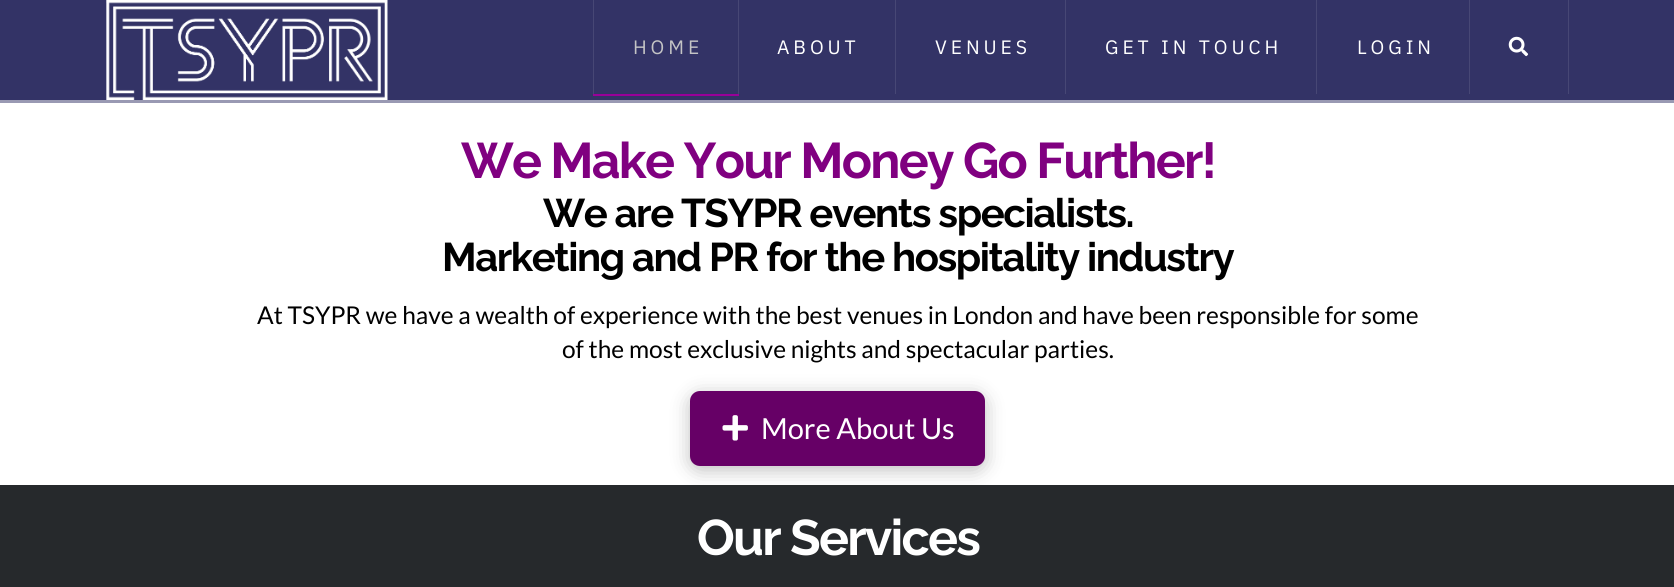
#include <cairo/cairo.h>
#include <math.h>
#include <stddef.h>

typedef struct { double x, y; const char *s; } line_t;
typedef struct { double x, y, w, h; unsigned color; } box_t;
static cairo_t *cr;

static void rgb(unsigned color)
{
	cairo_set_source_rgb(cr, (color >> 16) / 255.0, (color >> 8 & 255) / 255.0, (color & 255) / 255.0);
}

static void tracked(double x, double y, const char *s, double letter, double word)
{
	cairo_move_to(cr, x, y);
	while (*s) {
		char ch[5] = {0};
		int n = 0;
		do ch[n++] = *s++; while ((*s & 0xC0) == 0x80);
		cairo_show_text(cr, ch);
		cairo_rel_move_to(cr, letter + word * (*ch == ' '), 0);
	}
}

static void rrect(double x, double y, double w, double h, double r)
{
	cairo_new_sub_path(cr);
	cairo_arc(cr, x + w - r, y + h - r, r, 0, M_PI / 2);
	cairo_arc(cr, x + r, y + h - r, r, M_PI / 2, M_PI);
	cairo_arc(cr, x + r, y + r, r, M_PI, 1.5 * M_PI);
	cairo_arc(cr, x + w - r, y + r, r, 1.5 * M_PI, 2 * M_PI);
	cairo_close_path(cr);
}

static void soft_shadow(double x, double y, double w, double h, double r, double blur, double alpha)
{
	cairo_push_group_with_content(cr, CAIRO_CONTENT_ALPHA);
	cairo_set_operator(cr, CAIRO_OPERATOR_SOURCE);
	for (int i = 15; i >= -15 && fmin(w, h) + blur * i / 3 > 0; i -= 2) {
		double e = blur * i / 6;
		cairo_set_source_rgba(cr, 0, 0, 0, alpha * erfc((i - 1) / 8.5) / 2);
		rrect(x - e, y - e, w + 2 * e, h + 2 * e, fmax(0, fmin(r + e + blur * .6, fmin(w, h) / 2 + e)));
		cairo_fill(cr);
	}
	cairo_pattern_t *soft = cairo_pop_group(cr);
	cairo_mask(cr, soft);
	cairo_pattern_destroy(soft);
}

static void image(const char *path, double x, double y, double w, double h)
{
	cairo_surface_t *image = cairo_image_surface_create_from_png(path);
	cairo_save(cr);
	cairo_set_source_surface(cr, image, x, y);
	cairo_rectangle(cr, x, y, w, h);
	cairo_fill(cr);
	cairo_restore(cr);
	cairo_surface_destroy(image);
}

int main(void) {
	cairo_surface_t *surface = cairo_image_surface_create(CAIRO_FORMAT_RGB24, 1674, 587);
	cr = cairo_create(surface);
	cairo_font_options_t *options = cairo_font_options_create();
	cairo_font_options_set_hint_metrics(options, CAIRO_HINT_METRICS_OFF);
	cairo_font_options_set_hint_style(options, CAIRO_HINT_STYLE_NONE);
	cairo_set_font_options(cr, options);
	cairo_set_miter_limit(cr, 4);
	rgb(0xffffff);
	cairo_paint(cr);
	rgb(0x333366);
	cairo_rectangle(cr, 0, 0, 1674, 100);
	cairo_fill(cr);
	rgb(0x9999b3);
	cairo_rectangle(cr, 0, 100, 1674, 3);
	cairo_fill(cr);
	image("img/1.png", 106, 0, 282, 100);
	rgb(0x990099);
	cairo_new_path(cr);
	cairo_move_to(cr, 593, 94);
	cairo_line_to(cr, 593, 96);
	cairo_line_to(cr, 739, 96);
	cairo_line_to(cr, 739, 3);
	cairo_line_to(cr, 739, 94);
	cairo_close_path(cr);
	cairo_fill(cr);
	{
		static const box_t items[] = {
			{738, 0, 1, 94, 0x474775},
			{593, 0, 1, 94, 0x474775},
			{895, 0, 1, 94, 0x474775},
			{1065, 0, 1, 94, 0x474775},
			{1316, 0, 1, 94, 0x474775},
			{1469, 0, 1, 94, 0x474775},
			{1568, 0, 1, 94, 0x474775},
		};
		for (size_t i = 0; i < sizeof items / sizeof *items; i++) {
			rgb(items[i].color);
			cairo_rectangle(cr, items[i].x, items[i].y, items[i].w, items[i].h);
			cairo_fill(cr);
		}
	}
	image("img/2.png", 1508, 36, 21, 21);
	rgb(0x26292c);
	cairo_rectangle(cr, 0, 485, 1674, 102);
	cairo_fill(cr);
	rgb(0x000000);
	soft_shadow(690, 395, 295, 75, 10, 9.5, 0.25);
	rgb(0x660066);
	rrect(690, 391, 295, 75, 10);
	cairo_fill(cr);
	image("img/3.png", 722, 415, 26, 26);
	cairo_select_font_face(cr, "IBM Plex Sans", CAIRO_FONT_SLANT_NORMAL, CAIRO_FONT_WEIGHT_NORMAL);
	cairo_set_font_size(cr, 19.4);
	rgb(0xc4c4c5);
	tracked(633, 54, "HOME", 3.9, 0);
	rgb(0xffffff);
	{
		static const line_t items[] = {
			{777, 54, "ABOUT"},
			{935, 54, "VENUES"},
			{1105, 54, "GET IN TOUCH"},
			{1357, 54, "LOGIN"},
		};
		for (size_t i = 0; i < sizeof items / sizeof *items; i++) {
			tracked(items[i].x, items[i].y, items[i].s, 3.9, 0);
		}
	}
	cairo_select_font_face(cr, "Raleway", CAIRO_FONT_SLANT_NORMAL, CAIRO_FONT_WEIGHT_BOLD);
	cairo_set_font_size(cr, 50);
	rgb(0x800080);
	tracked(461, 178, "We Make Your Money Go Further!", -1.75, 0);
	cairo_set_font_size(cr, 40);
	rgb(0x000000);
	tracked(543, 227, "We are TSYPR events specialists.", -1.4, 0);
	tracked(442, 271, "Marketing and PR for the hospitality industry", -1.4, 0);
	cairo_select_font_face(cr, "Lato", CAIRO_FONT_SLANT_NORMAL, CAIRO_FONT_WEIGHT_NORMAL);
	cairo_set_font_size(cr, 24.5);
	cairo_move_to(cr, 257, 324);
	cairo_show_text(cr, "At TSYPR we have a wealth of experience with the best venues in London and have been responsible for some");
	cairo_move_to(cr, 562, 358);
	cairo_show_text(cr, "of the most exclusive nights and spectacular parties.");
	cairo_set_font_size(cr, 29);
	rgb(0xffffff);
	cairo_move_to(cr, 761, 439);
	cairo_show_text(cr, "More About Us");
	cairo_select_font_face(cr, "Raleway", CAIRO_FONT_SLANT_NORMAL, CAIRO_FONT_WEIGHT_BOLD);
	cairo_set_font_size(cr, 50);
	tracked(697, 555, "Our Services", -1.75, 0);
	cairo_surface_write_to_png(surface, "page.png");
	cairo_font_options_destroy(options);
	cairo_destroy(cr);
	cairo_surface_destroy(surface);
	return 0;
}
